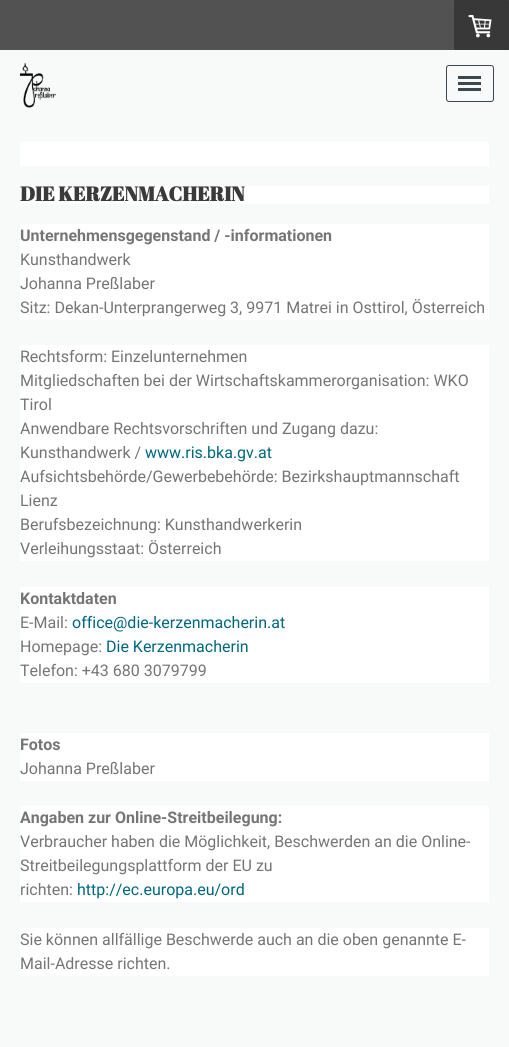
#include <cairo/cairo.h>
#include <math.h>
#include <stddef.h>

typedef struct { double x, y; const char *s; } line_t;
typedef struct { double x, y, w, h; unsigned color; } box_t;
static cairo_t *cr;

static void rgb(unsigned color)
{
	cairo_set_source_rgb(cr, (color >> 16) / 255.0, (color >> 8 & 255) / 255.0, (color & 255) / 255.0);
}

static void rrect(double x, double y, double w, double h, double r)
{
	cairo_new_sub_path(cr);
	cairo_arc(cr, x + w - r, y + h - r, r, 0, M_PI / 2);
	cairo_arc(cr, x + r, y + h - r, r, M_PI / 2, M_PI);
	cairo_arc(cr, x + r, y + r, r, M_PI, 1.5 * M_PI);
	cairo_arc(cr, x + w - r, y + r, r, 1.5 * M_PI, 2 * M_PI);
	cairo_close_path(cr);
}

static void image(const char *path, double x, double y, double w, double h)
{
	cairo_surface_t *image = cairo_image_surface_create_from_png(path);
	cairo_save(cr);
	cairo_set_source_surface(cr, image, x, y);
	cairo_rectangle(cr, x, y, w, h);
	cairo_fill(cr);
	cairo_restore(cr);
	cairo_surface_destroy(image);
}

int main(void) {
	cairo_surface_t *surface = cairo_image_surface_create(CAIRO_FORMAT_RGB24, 509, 1047);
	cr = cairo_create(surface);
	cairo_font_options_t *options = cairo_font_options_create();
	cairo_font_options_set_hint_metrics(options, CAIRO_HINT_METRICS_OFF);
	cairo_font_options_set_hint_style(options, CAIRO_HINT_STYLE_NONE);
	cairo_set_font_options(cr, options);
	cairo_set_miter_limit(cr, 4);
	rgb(0x525252);
	cairo_paint(cr);
	rgb(0x383838);
	rrect(454, 0, 55, 50, 1);
	cairo_fill(cr);
	image("img/1.png", 468, 15, 24, 23);
	rgb(0xf8f9f9);
	cairo_rectangle(cr, 0, 50, 509, 997);
	cairo_fill(cr);
	image("img/2.png", 20, 63, 36, 45);
	rrect(446.5, 65.5, 47, 36, 2.5);
	rgb(0x3e474c);
	cairo_set_line_width(cr, 1);
	cairo_stroke(cr);
	{
		static const box_t items[] = {
			{458, 82, 23, 3, 0x3e474c},
			{458, 76, 23, 3, 0x3e474c},
			{458, 88, 23, 3, 0x3e474c},
			{20, 142, 469, 24, 0xffffff},
			{20, 186, 469, 18, 0xffffff},
			{20, 224, 469, 96, 0xffffff},
			{20, 345, 469, 216, 0xffffff},
			{20, 587, 469, 96, 0xffffff},
			{20, 733, 469, 48, 0xffffff},
			{20, 806, 469, 96, 0xffffff},
			{20, 928, 469, 48, 0xffffff},
		};
		for (size_t i = 0; i < sizeof items / sizeof *items; i++) {
			rgb(items[i].color);
			cairo_rectangle(cr, items[i].x, items[i].y, items[i].w, items[i].h);
			cairo_fill(cr);
		}
	}
	cairo_select_font_face(cr, "Abril Fatface", CAIRO_FONT_SLANT_NORMAL, CAIRO_FONT_WEIGHT_BOLD);
	cairo_set_font_size(cr, 20);
	rgb(0x3a3a3a);
	cairo_move_to(cr, 20, 201);
	cairo_show_text(cr, "DIE KERZENMACHERIN");
	cairo_select_font_face(cr, "Roboto", CAIRO_FONT_SLANT_NORMAL, CAIRO_FONT_WEIGHT_BOLD);
	cairo_set_font_size(cr, 16);
	rgb(0x757575);
	cairo_move_to(cr, 20, 241);
	cairo_show_text(cr, "Unternehmensgegenstand / -informationen");
	cairo_select_font_face(cr, "Roboto", CAIRO_FONT_SLANT_NORMAL, CAIRO_FONT_WEIGHT_NORMAL);
	{
		static const line_t items[] = {
			{20, 265, "Kunsthandwerk"},
			{20, 289, "Johanna Preßlaber"},
			{20, 313, "Sitz: Dekan-Unterprangerweg 3, 9971 Matrei in Osttirol, Österreich"},
			{20, 362, "Rechtsform: Einzelunternehmen"},
			{20, 386, "Mitgliedschaften bei der Wirtschaftskammerorganisation: WKO"},
			{20, 410, "Tirol"},
			{20, 434, "Anwendbare Rechtsvorschriften und Zugang dazu:"},
			{20, 458, "Kunsthandwerk /"},
		};
		for (size_t i = 0; i < sizeof items / sizeof *items; i++) {
			cairo_move_to(cr, items[i].x, items[i].y);
			cairo_show_text(cr, items[i].s);
		}
	}
	rgb(0x00677f);
	cairo_move_to(cr, 145, 458);
	cairo_show_text(cr, "www.ris.bka.gv.at");
	rgb(0x757575);
	{
		static const line_t items[] = {
			{20, 482, "Aufsichtsbehörde/Gewerbebehörde: Bezirkshauptmannschaft"},
			{20, 506, "Lienz"},
			{20, 530, "Berufsbezeichnung: Kunsthandwerkerin"},
			{20, 554, "Verleihungsstaat: Österreich"},
		};
		for (size_t i = 0; i < sizeof items / sizeof *items; i++) {
			cairo_move_to(cr, items[i].x, items[i].y);
			cairo_show_text(cr, items[i].s);
		}
	}
	cairo_select_font_face(cr, "Roboto", CAIRO_FONT_SLANT_NORMAL, CAIRO_FONT_WEIGHT_BOLD);
	cairo_move_to(cr, 20, 604);
	cairo_show_text(cr, "Kontaktdaten");
	cairo_select_font_face(cr, "Roboto", CAIRO_FONT_SLANT_NORMAL, CAIRO_FONT_WEIGHT_NORMAL);
	cairo_move_to(cr, 20, 628);
	cairo_show_text(cr, "E-Mail:");
	rgb(0x00677f);
	cairo_move_to(cr, 72, 628);
	cairo_show_text(cr, "office@die-kerzenmacherin.at");
	rgb(0x757575);
	cairo_move_to(cr, 20, 652);
	cairo_show_text(cr, "Homepage:");
	rgb(0x00677f);
	cairo_move_to(cr, 106, 652);
	cairo_show_text(cr, "Die Kerzenmacherin");
	rgb(0x757575);
	cairo_move_to(cr, 20, 676);
	cairo_show_text(cr, "Telefon: +43 680 3079799");
	cairo_select_font_face(cr, "Roboto", CAIRO_FONT_SLANT_NORMAL, CAIRO_FONT_WEIGHT_BOLD);
	cairo_move_to(cr, 20, 750);
	cairo_show_text(cr, "Fotos");
	cairo_select_font_face(cr, "Roboto", CAIRO_FONT_SLANT_NORMAL, CAIRO_FONT_WEIGHT_NORMAL);
	cairo_move_to(cr, 20, 774);
	cairo_show_text(cr, "Johanna Preßlaber");
	cairo_select_font_face(cr, "Roboto", CAIRO_FONT_SLANT_NORMAL, CAIRO_FONT_WEIGHT_BOLD);
	cairo_move_to(cr, 20, 823);
	cairo_show_text(cr, "Angaben zur Online-Streitbeilegung:");
	cairo_select_font_face(cr, "Roboto", CAIRO_FONT_SLANT_NORMAL, CAIRO_FONT_WEIGHT_NORMAL);
	{
		static const line_t items[] = {
			{20, 847, "Verbraucher haben die Möglichkeit, Beschwerden an die Online-"},
			{20, 871, "Streitbeilegungsplattform der EU zu"},
			{20, 895, "richten:"},
		};
		for (size_t i = 0; i < sizeof items / sizeof *items; i++) {
			cairo_move_to(cr, items[i].x, items[i].y);
			cairo_show_text(cr, items[i].s);
		}
	}
	rgb(0x00677f);
	cairo_move_to(cr, 77, 895);
	cairo_show_text(cr, "http://ec.europa.eu/ord");
	rgb(0x757575);
	cairo_move_to(cr, 20, 945);
	cairo_show_text(cr, "Sie können allfällige Beschwerde auch an die oben genannte E-");
	cairo_move_to(cr, 20, 969);
	cairo_show_text(cr, "Mail-Adresse richten.");
	cairo_surface_write_to_png(surface, "page.png");
	cairo_font_options_destroy(options);
	cairo_destroy(cr);
	cairo_surface_destroy(surface);
	return 0;
}
